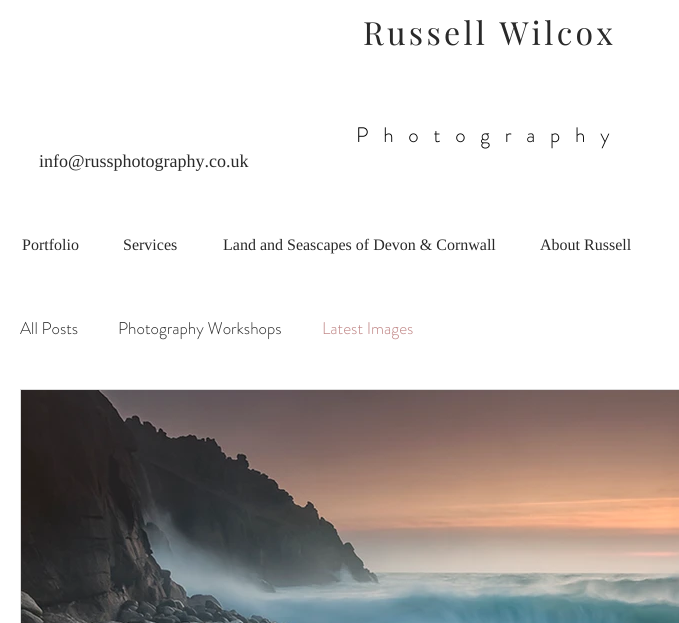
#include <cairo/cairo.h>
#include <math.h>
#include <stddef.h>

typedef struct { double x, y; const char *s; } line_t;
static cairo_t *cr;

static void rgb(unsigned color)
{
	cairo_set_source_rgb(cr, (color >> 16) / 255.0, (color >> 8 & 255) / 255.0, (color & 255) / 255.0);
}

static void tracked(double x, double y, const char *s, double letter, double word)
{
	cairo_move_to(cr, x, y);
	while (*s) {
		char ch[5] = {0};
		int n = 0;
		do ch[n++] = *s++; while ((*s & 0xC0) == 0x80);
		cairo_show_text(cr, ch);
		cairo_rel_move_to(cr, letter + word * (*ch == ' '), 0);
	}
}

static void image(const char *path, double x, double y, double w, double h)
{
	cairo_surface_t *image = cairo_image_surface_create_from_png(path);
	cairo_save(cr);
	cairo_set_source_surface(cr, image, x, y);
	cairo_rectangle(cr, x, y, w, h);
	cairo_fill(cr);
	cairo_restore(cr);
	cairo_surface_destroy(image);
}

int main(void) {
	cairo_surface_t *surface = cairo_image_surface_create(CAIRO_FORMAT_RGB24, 679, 623);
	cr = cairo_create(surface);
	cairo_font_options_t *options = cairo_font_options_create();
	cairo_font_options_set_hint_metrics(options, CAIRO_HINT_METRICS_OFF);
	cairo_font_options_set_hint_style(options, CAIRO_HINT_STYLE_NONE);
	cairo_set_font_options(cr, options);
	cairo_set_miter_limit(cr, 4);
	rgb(0xffffff);
	cairo_paint(cr);
	cairo_rectangle(cr, 20.5, 389.5, 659, 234);
	rgb(0xdbdbdb);
	cairo_set_line_width(cr, 1);
	cairo_stroke(cr);
	image("img/1.png", 21, 390, 658, 233);
	cairo_select_font_face(cr, "Playfair Display", CAIRO_FONT_SLANT_NORMAL, CAIRO_FONT_WEIGHT_NORMAL);
	cairo_set_font_size(cr, 32);
	rgb(0x292929);
	tracked(363, 45, "Russell Wilcox", 3.25, 0);
	cairo_select_font_face(cr, "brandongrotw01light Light", CAIRO_FONT_SLANT_NORMAL, CAIRO_FONT_WEIGHT_NORMAL);
	cairo_set_font_size(cr, 21);
	rgb(0x000000);
	tracked(356, 142, "Photography", 14.75, 0);
	cairo_select_font_face(cr, "Liberation Serif", CAIRO_FONT_SLANT_NORMAL, CAIRO_FONT_WEIGHT_NORMAL);
	cairo_set_font_size(cr, 18);
	rgb(0x292929);
	cairo_move_to(cr, 39, 167);
	cairo_show_text(cr, "info@russphotography.co.uk");
	cairo_set_font_size(cr, 16);
	{
		static const line_t items[] = {
			{22, 250, "Portfolio"},
			{123, 250, "Services"},
			{223, 250, "Land and Seascapes of Devon & Cornwall"},
			{540, 250, "About Russell"},
		};
		for (size_t i = 0; i < sizeof items / sizeof *items; i++) {
			cairo_move_to(cr, items[i].x, items[i].y);
			cairo_show_text(cr, items[i].s);
		}
	}
	cairo_select_font_face(cr, "brandongrotw01light Light", CAIRO_FONT_SLANT_NORMAL, CAIRO_FONT_WEIGHT_NORMAL);
	cairo_set_font_size(cr, 17);
	cairo_move_to(cr, 20, 334);
	cairo_show_text(cr, "All Posts");
	cairo_move_to(cr, 118, 334);
	cairo_show_text(cr, "Photography Workshops");
	rgb(0xbf8484);
	cairo_move_to(cr, 322, 334);
	cairo_show_text(cr, "Latest Images");
	cairo_surface_write_to_png(surface, "page.png");
	cairo_font_options_destroy(options);
	cairo_destroy(cr);
	cairo_surface_destroy(surface);
	return 0;
}
